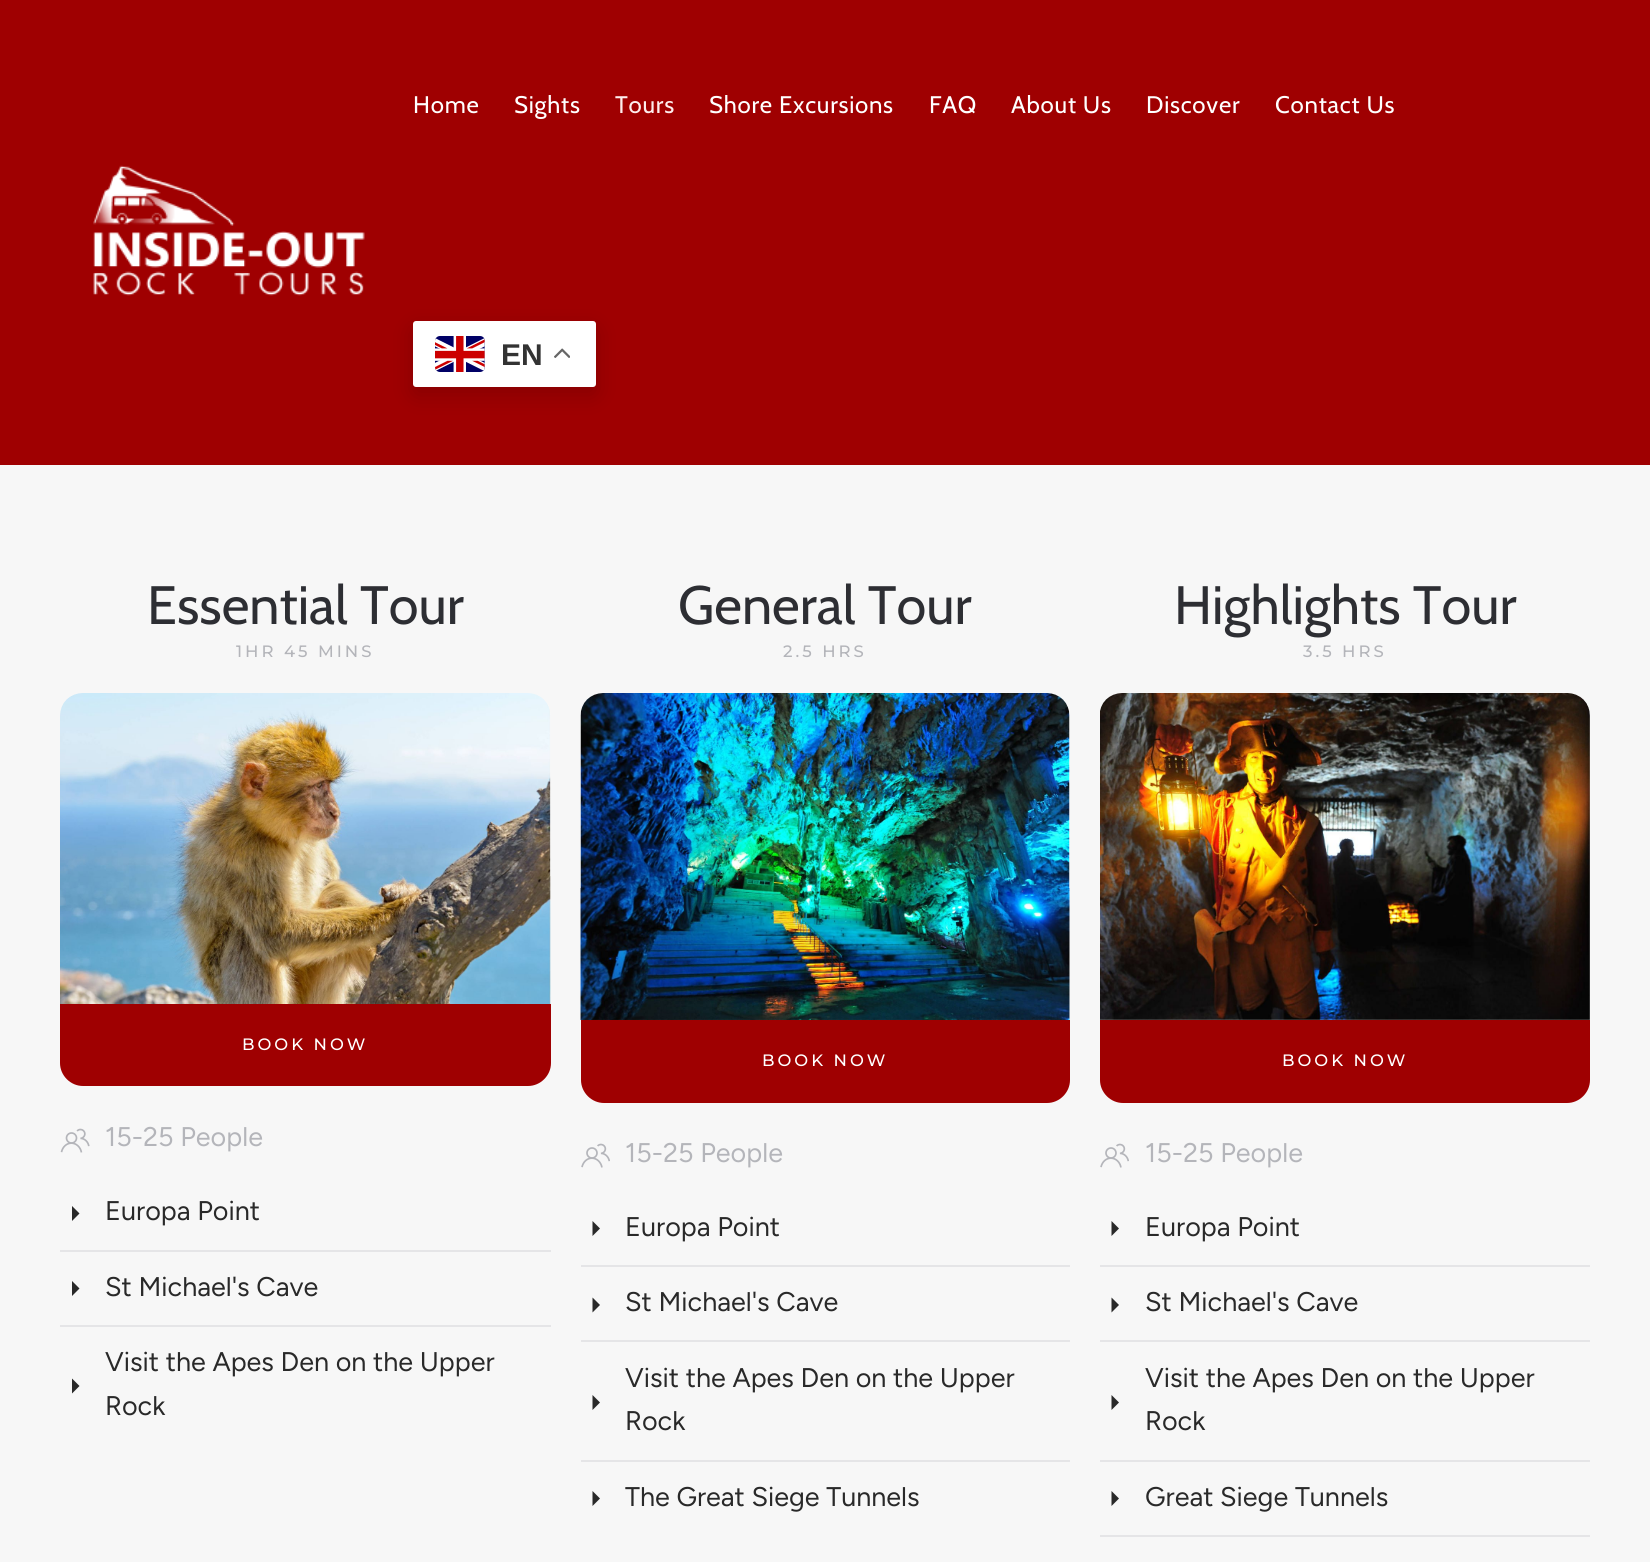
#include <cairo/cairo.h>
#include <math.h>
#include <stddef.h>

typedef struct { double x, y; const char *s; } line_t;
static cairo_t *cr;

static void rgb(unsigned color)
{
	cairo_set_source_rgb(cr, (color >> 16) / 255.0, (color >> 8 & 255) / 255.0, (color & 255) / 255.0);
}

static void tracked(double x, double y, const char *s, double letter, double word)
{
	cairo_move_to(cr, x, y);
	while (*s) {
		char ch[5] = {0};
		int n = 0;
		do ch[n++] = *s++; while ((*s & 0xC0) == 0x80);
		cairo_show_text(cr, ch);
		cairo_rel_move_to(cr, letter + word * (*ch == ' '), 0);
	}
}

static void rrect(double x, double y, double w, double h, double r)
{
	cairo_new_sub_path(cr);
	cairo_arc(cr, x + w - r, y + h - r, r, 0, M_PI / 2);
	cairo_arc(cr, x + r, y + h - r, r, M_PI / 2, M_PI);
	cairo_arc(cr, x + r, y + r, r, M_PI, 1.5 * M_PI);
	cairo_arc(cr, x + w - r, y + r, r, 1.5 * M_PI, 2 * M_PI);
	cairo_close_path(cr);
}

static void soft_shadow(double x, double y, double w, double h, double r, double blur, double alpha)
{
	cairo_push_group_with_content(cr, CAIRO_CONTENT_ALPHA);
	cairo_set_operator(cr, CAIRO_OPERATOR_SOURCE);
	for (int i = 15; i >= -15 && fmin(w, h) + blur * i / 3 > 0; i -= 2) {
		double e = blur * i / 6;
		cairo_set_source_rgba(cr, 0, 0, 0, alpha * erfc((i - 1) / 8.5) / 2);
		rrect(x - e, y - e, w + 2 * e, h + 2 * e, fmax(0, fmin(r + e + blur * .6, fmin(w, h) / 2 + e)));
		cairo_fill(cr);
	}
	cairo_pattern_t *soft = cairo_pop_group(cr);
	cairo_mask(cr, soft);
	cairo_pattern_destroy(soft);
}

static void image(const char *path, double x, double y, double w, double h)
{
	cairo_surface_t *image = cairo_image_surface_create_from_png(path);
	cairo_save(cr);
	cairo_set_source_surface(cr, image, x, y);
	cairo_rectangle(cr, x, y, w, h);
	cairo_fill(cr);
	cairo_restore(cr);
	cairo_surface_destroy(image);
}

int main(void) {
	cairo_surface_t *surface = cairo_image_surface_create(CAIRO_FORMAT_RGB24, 1650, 1562);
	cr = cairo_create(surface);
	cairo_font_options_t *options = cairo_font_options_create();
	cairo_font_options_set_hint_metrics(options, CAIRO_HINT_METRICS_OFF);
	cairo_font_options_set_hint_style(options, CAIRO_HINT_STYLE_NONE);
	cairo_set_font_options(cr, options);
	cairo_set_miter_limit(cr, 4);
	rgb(0xf7f7f7);
	cairo_paint(cr);
	rgb(0x9f0001);
	cairo_rectangle(cr, 0, 0, 1650, 465);
	cairo_fill(cr);
	image("img/1.png", 93, 165, 272, 131);
	rgb(0x000000);
	soft_shadow(413, 329, 183, 66, 3, 11, 0.15);
	rgb(0xffffff);
	rrect(413, 321, 183, 66, 3);
	cairo_fill(cr);
	image("img/2.png", 435, 336, 50, 36);
	image("img/3.png", 554, 348, 16, 10);
	image("img/4.png", 60, 693, 491, 311);
	rgb(0x9f0001);
	cairo_new_path(cr);
	cairo_move_to(cr, 60, 1004);
	cairo_line_to(cr, 551, 1004);
	cairo_line_to(cr, 551, 1063);
	cairo_curve_to(cr, 551, 1075.5, 540.5, 1086, 528, 1086);
	cairo_line_to(cr, 83, 1086);
	cairo_curve_to(cr, 70.5, 1086, 60, 1075.5, 60, 1063);
	cairo_close_path(cr);
	cairo_fill(cr);
	image("img/5.png", 60, 1128, 30, 25);
	rgb(0x292929);
	cairo_new_path(cr);
	cairo_move_to(cr, 72, 1206);
	cairo_line_to(cr, 79.5, 1213.5);
	cairo_line_to(cr, 72, 1221);
	cairo_close_path(cr);
	cairo_fill(cr);
	rgb(0xe5e5e7);
	cairo_rectangle(cr, 60, 1250, 491, 2);
	cairo_fill(cr);
	rgb(0x292929);
	cairo_new_path(cr);
	cairo_move_to(cr, 72, 1281);
	cairo_line_to(cr, 79.5, 1288.5);
	cairo_line_to(cr, 72, 1296);
	cairo_close_path(cr);
	cairo_fill(cr);
	rgb(0xe5e5e7);
	cairo_rectangle(cr, 60, 1325, 491, 2);
	cairo_fill(cr);
	rgb(0x292929);
	cairo_new_path(cr);
	cairo_move_to(cr, 72, 1378.5);
	cairo_line_to(cr, 79.5, 1386);
	cairo_line_to(cr, 72, 1393.5);
	cairo_close_path(cr);
	cairo_fill(cr);
	image("img/6.png", 580, 693, 490, 327);
	rgb(0x9f0001);
	cairo_new_path(cr);
	cairo_move_to(cr, 581, 1020);
	cairo_line_to(cr, 1070, 1020);
	cairo_line_to(cr, 1070, 1080);
	cairo_curve_to(cr, 1070, 1092.5, 1059.5, 1103, 1047, 1103);
	cairo_line_to(cr, 604, 1103);
	cairo_curve_to(cr, 591.5, 1103, 581, 1092.5, 581, 1080);
	cairo_close_path(cr);
	cairo_fill(cr);
	image("img/7.png", 581, 1143, 29, 25);
	rgb(0x292929);
	cairo_new_path(cr);
	cairo_move_to(cr, 592.5, 1221);
	cairo_line_to(cr, 600, 1228.5);
	cairo_line_to(cr, 592.5, 1236);
	cairo_close_path(cr);
	cairo_fill(cr);
	rgb(0xe5e5e7);
	cairo_rectangle(cr, 581, 1265, 489, 2);
	cairo_fill(cr);
	rgb(0x292929);
	cairo_new_path(cr);
	cairo_move_to(cr, 592.5, 1297.5);
	cairo_line_to(cr, 600, 1305);
	cairo_line_to(cr, 592.5, 1312.5);
	cairo_close_path(cr);
	cairo_fill(cr);
	rgb(0xe5e5e7);
	cairo_rectangle(cr, 581, 1340, 489, 2);
	cairo_fill(cr);
	rgb(0x292929);
	cairo_new_path(cr);
	cairo_move_to(cr, 592.5, 1395);
	cairo_line_to(cr, 600, 1402.5);
	cairo_line_to(cr, 592.5, 1410);
	cairo_close_path(cr);
	cairo_fill(cr);
	rgb(0xe5e5e7);
	cairo_rectangle(cr, 581, 1460, 489, 2);
	cairo_fill(cr);
	rgb(0x292929);
	cairo_new_path(cr);
	cairo_move_to(cr, 592.5, 1491);
	cairo_line_to(cr, 600, 1498.5);
	cairo_line_to(cr, 592.5, 1506);
	cairo_close_path(cr);
	cairo_fill(cr);
	image("img/8.png", 1100, 693, 490, 327);
	rgb(0x9f0001);
	cairo_new_path(cr);
	cairo_move_to(cr, 1100, 1020);
	cairo_line_to(cr, 1590, 1020);
	cairo_line_to(cr, 1590, 1080);
	cairo_curve_to(cr, 1590, 1092.5, 1579.5, 1103, 1567, 1103);
	cairo_line_to(cr, 1123, 1103);
	cairo_curve_to(cr, 1110.5, 1103, 1100, 1092.5, 1100, 1080);
	cairo_close_path(cr);
	cairo_fill(cr);
	image("img/7.png", 1100, 1143, 29, 25);
	rgb(0x292929);
	cairo_new_path(cr);
	cairo_move_to(cr, 1111.5, 1221);
	cairo_line_to(cr, 1119, 1228.5);
	cairo_line_to(cr, 1111.5, 1236);
	cairo_close_path(cr);
	cairo_fill(cr);
	rgb(0xe5e5e7);
	cairo_rectangle(cr, 1100, 1265, 490, 2);
	cairo_fill(cr);
	rgb(0x292929);
	cairo_new_path(cr);
	cairo_move_to(cr, 1111.5, 1297.5);
	cairo_line_to(cr, 1119, 1305);
	cairo_line_to(cr, 1111.5, 1312.5);
	cairo_close_path(cr);
	cairo_fill(cr);
	rgb(0xe5e5e7);
	cairo_rectangle(cr, 1100, 1340, 490, 2);
	cairo_fill(cr);
	rgb(0x292929);
	cairo_new_path(cr);
	cairo_move_to(cr, 1111.5, 1395);
	cairo_line_to(cr, 1119, 1402.5);
	cairo_line_to(cr, 1111.5, 1410);
	cairo_close_path(cr);
	cairo_fill(cr);
	rgb(0xe5e5e7);
	cairo_rectangle(cr, 1100, 1460, 490, 2);
	cairo_fill(cr);
	rgb(0x292929);
	cairo_new_path(cr);
	cairo_move_to(cr, 1111.5, 1491);
	cairo_line_to(cr, 1119, 1498.5);
	cairo_line_to(cr, 1111.5, 1506);
	cairo_close_path(cr);
	cairo_fill(cr);
	rgb(0xe5e5e7);
	cairo_rectangle(cr, 1100, 1535, 490, 2);
	cairo_fill(cr);
	cairo_select_font_face(cr, "Cabin", CAIRO_FONT_SLANT_NORMAL, CAIRO_FONT_WEIGHT_NORMAL);
	cairo_set_font_size(cr, 24);
	rgb(0xffffff);
	tracked(413, 113, "Home", 0.75, 0);
	tracked(514, 113, "Sights", 0.75, 0);
	rgb(0xfeeded);
	tracked(615, 113, "Tours", 0.75, 0);
	rgb(0xffffff);
	{
		static const line_t items[] = {
			{709, 113, "Shore Excursions"},
			{929, 113, "FAQ"},
			{1011, 113, "About Us"},
			{1146, 113, "Discover"},
			{1275, 113, "Contact Us"},
		};
		for (size_t i = 0; i < sizeof items / sizeof *items; i++) {
			tracked(items[i].x, items[i].y, items[i].s, 0.75, 0);
		}
	}
	cairo_select_font_face(cr, "Liberation Sans", CAIRO_FONT_SLANT_NORMAL, CAIRO_FONT_WEIGHT_BOLD);
	cairo_set_font_size(cr, 30);
	rgb(0x333333);
	cairo_move_to(cr, 501, 365);
	cairo_show_text(cr, "EN");
	cairo_select_font_face(cr, "Cabin", CAIRO_FONT_SLANT_NORMAL, CAIRO_FONT_WEIGHT_NORMAL);
	cairo_set_font_size(cr, 54);
	rgb(0x2d2e33);
	cairo_move_to(cr, 147, 624);
	cairo_show_text(cr, "Essential Tour");
	cairo_select_font_face(cr, "Montserrat Thin", CAIRO_FONT_SLANT_NORMAL, CAIRO_FONT_WEIGHT_NORMAL);
	cairo_set_font_size(cr, 16.5);
	rgb(0xb4b5ba);
	tracked(236, 657, "1HR 45 MINS", 3, 0);
	rgb(0xffffff);
	tracked(242, 1050, "BOOK NOW", 3, 0);
	cairo_select_font_face(cr, "Figtree Light", CAIRO_FONT_SLANT_NORMAL, CAIRO_FONT_WEIGHT_NORMAL);
	cairo_set_font_size(cr, 27);
	rgb(0xb4b5ba);
	cairo_move_to(cr, 105, 1146);
	cairo_show_text(cr, "15-25 People");
	rgb(0x292929);
	{
		static const line_t items[] = {
			{105, 1220, "Europa Point"},
			{105, 1296, "St Michael's Cave"},
			{105, 1371, "Visit the Apes Den on the Upper"},
			{105, 1415, "Rock"},
		};
		for (size_t i = 0; i < sizeof items / sizeof *items; i++) {
			cairo_move_to(cr, items[i].x, items[i].y);
			cairo_show_text(cr, items[i].s);
		}
	}
	cairo_select_font_face(cr, "Cabin", CAIRO_FONT_SLANT_NORMAL, CAIRO_FONT_WEIGHT_NORMAL);
	cairo_set_font_size(cr, 54);
	rgb(0x2d2e33);
	cairo_move_to(cr, 678, 624);
	cairo_show_text(cr, "General Tour");
	cairo_select_font_face(cr, "Montserrat Thin", CAIRO_FONT_SLANT_NORMAL, CAIRO_FONT_WEIGHT_NORMAL);
	cairo_set_font_size(cr, 16.5);
	rgb(0xb4b5ba);
	tracked(783, 657, "2.5 HRS", 3, 0);
	rgb(0xffffff);
	tracked(762, 1066, "BOOK NOW", 3, 0);
	cairo_select_font_face(cr, "Figtree Light", CAIRO_FONT_SLANT_NORMAL, CAIRO_FONT_WEIGHT_NORMAL);
	cairo_set_font_size(cr, 27);
	rgb(0xb4b5ba);
	cairo_move_to(cr, 625, 1162);
	cairo_show_text(cr, "15-25 People");
	rgb(0x292929);
	{
		static const line_t items[] = {
			{625, 1236, "Europa Point"},
			{625, 1311, "St Michael's Cave"},
			{625, 1387, "Visit the Apes Den on the Upper"},
			{625, 1430, "Rock"},
			{625, 1506, "The Great Siege Tunnels"},
		};
		for (size_t i = 0; i < sizeof items / sizeof *items; i++) {
			cairo_move_to(cr, items[i].x, items[i].y);
			cairo_show_text(cr, items[i].s);
		}
	}
	cairo_select_font_face(cr, "Cabin", CAIRO_FONT_SLANT_NORMAL, CAIRO_FONT_WEIGHT_NORMAL);
	cairo_set_font_size(cr, 54);
	rgb(0x2d2e33);
	cairo_move_to(cr, 1174, 624);
	cairo_show_text(cr, "Highlights Tour");
	cairo_select_font_face(cr, "Montserrat Thin", CAIRO_FONT_SLANT_NORMAL, CAIRO_FONT_WEIGHT_NORMAL);
	cairo_set_font_size(cr, 16.5);
	rgb(0xb4b5ba);
	tracked(1303, 657, "3.5 HRS", 3, 0);
	rgb(0xffffff);
	tracked(1282, 1066, "BOOK NOW", 3, 0);
	cairo_select_font_face(cr, "Figtree Light", CAIRO_FONT_SLANT_NORMAL, CAIRO_FONT_WEIGHT_NORMAL);
	cairo_set_font_size(cr, 27);
	rgb(0xb4b5ba);
	cairo_move_to(cr, 1145, 1162);
	cairo_show_text(cr, "15-25 People");
	rgb(0x292929);
	{
		static const line_t items[] = {
			{1145, 1236, "Europa Point"},
			{1145, 1311, "St Michael's Cave"},
			{1145, 1387, "Visit the Apes Den on the Upper"},
			{1145, 1430, "Rock"},
			{1145, 1506, "Great Siege Tunnels"},
		};
		for (size_t i = 0; i < sizeof items / sizeof *items; i++) {
			cairo_move_to(cr, items[i].x, items[i].y);
			cairo_show_text(cr, items[i].s);
		}
	}
	cairo_surface_write_to_png(surface, "page.png");
	cairo_font_options_destroy(options);
	cairo_destroy(cr);
	cairo_surface_destroy(surface);
	return 0;
}
